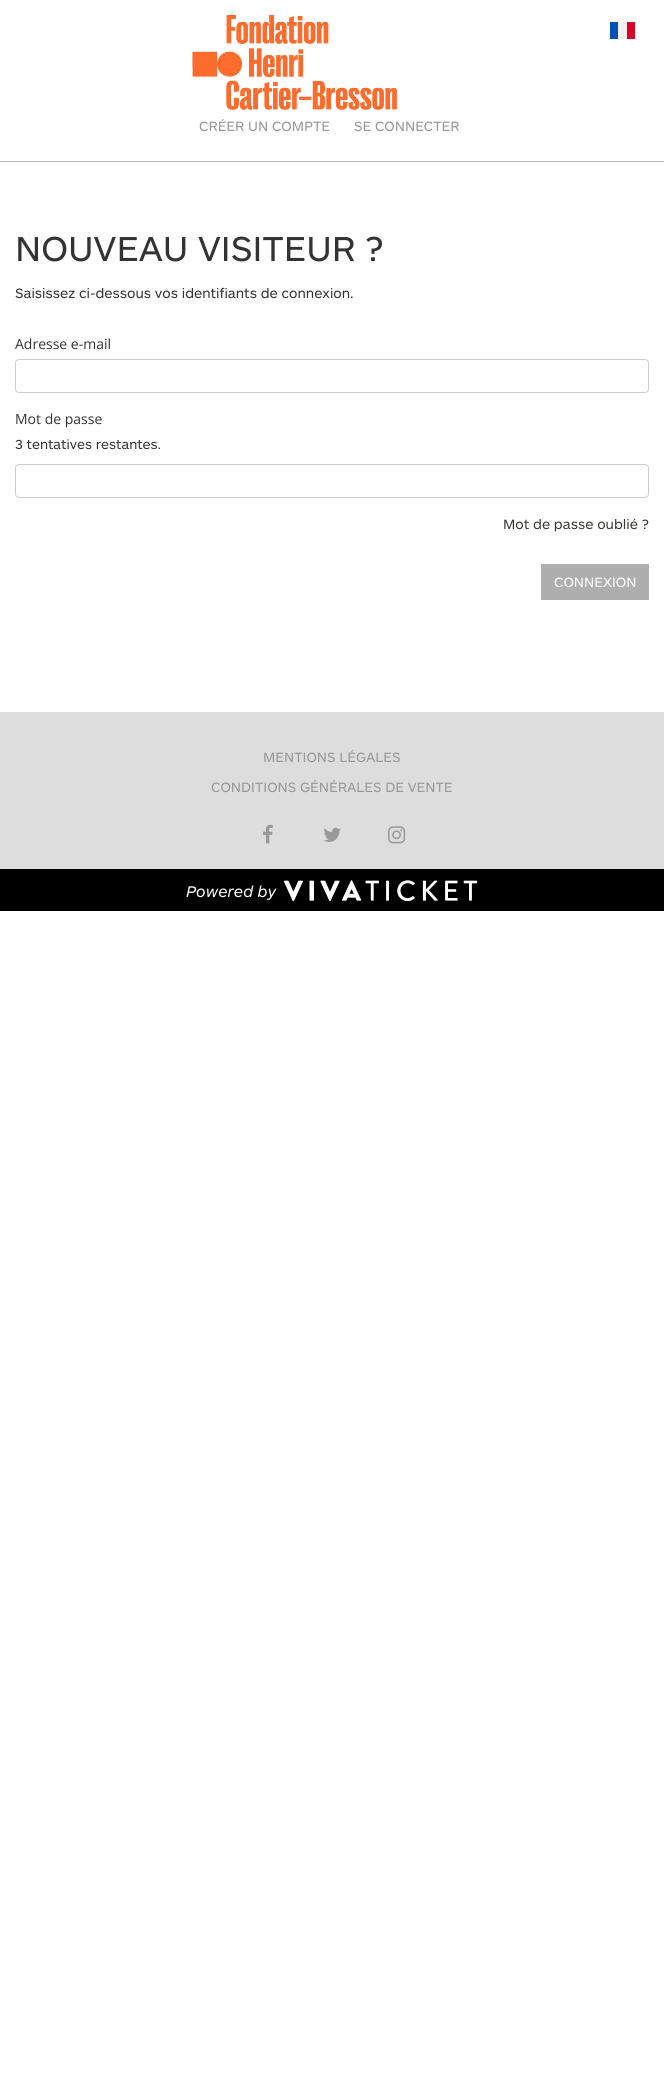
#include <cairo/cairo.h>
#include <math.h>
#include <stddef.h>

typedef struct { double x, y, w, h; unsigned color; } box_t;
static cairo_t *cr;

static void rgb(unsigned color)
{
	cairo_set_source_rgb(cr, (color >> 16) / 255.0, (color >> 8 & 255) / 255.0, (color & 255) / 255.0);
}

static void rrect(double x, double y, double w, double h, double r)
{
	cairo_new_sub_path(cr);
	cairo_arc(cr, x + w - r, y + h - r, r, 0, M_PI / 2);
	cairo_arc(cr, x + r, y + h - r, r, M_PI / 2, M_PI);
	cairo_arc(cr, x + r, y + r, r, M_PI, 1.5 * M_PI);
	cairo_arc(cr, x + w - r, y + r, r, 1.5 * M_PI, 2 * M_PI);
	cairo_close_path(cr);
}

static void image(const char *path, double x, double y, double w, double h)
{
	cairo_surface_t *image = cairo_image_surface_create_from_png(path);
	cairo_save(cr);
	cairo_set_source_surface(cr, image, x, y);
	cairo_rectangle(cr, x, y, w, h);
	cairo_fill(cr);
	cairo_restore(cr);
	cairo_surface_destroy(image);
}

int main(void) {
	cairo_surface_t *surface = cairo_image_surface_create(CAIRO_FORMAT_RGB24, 664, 2095);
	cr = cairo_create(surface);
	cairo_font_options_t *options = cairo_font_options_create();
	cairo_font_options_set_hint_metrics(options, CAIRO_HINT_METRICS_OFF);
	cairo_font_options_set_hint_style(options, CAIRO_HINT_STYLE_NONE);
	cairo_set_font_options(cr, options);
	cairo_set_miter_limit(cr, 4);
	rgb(0xffffff);
	cairo_paint(cr);
	rgb(0xbbbbbb);
	cairo_rectangle(cr, 0, 161, 664, 1);
	cairo_fill(cr);
	image("img/1.png", 192, 15, 205, 95);
	{
		static const box_t items[] = {
			{610, 22, 8, 17, 0x0052b4},
			{618, 22, 9, 17, 0xf0f0f0},
			{627, 22, 8, 17, 0xd80027},
		};
		for (size_t i = 0; i < sizeof items / sizeof *items; i++) {
			rgb(items[i].color);
			cairo_rectangle(cr, items[i].x, items[i].y, items[i].w, items[i].h);
			cairo_fill(cr);
		}
	}
	rrect(15.5, 359.5, 633, 33, 3.5);
	rgb(0xcccccc);
	cairo_set_line_width(cr, 1);
	cairo_stroke(cr);
	rrect(15.5, 464.5, 633, 33, 3.5);
	cairo_stroke(cr);
	rgb(0xafaeae);
	cairo_rectangle(cr, 541, 564, 108, 36);
	cairo_fill(cr);
	rgb(0xdddddd);
	cairo_rectangle(cr, 0, 712, 664, 157);
	cairo_fill(cr);
	image("img/2.png", 263, 824, 10, 20);
	image("img/3.png", 323, 827, 18, 15);
	image("img/4.png", 388, 826, 18, 18);
	rgb(0x000000);
	cairo_rectangle(cr, 0, 869, 664, 42);
	cairo_fill(cr);
	image("img/5.png", 283, 880, 195, 22);
	cairo_select_font_face(cr, "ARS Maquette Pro", CAIRO_FONT_SLANT_NORMAL, CAIRO_FONT_WEIGHT_NORMAL);
	cairo_set_font_size(cr, 14);
	rgb(0x999999);
	cairo_move_to(cr, 199, 131);
	cairo_show_text(cr, "CRÉER UN COMPTE");
	cairo_move_to(cr, 354, 131);
	cairo_show_text(cr, "SE CONNECTER");
	cairo_set_font_size(cr, 36);
	rgb(0x333333);
	cairo_move_to(cr, 15, 261);
	cairo_show_text(cr, "NOUVEAU VISITEUR ?");
	cairo_set_font_size(cr, 14);
	cairo_move_to(cr, 15, 298);
	cairo_show_text(cr, "Saisissez ci-dessous vos identifiants de connexion.");
	cairo_select_font_face(cr, "Open Sans", CAIRO_FONT_SLANT_NORMAL, CAIRO_FONT_WEIGHT_NORMAL);
	cairo_move_to(cr, 15, 349);
	cairo_show_text(cr, "Adresse e-mail");
	cairo_move_to(cr, 15, 424);
	cairo_show_text(cr, "Mot de passe");
	cairo_select_font_face(cr, "ARS Maquette Pro", CAIRO_FONT_SLANT_NORMAL, CAIRO_FONT_WEIGHT_NORMAL);
	cairo_set_font_size(cr, 13.6);
	cairo_move_to(cr, 15, 449);
	cairo_show_text(cr, "3 tentatives restantes.");
	cairo_set_font_size(cr, 14);
	rgb(0x3a3936);
	cairo_move_to(cr, 503, 529);
	cairo_show_text(cr, "Mot de passe oublié ?");
	rgb(0xffffff);
	cairo_move_to(cr, 554, 587);
	cairo_show_text(cr, "CONNEXION");
	rgb(0x999999);
	cairo_move_to(cr, 263, 762);
	cairo_show_text(cr, "MENTIONS LÉGALES");
	cairo_move_to(cr, 211, 792);
	cairo_show_text(cr, "CONDITIONS GÉNÉRALES DE VENTE");
	cairo_select_font_face(cr, "ARS Maquette Pro", CAIRO_FONT_SLANT_ITALIC, CAIRO_FONT_WEIGHT_NORMAL);
	cairo_set_font_size(cr, 16);
	rgb(0xffffff);
	cairo_move_to(cr, 186, 897);
	cairo_show_text(cr, "Powered by");
	cairo_surface_write_to_png(surface, "page.png");
	cairo_font_options_destroy(options);
	cairo_destroy(cr);
	cairo_surface_destroy(surface);
	return 0;
}
